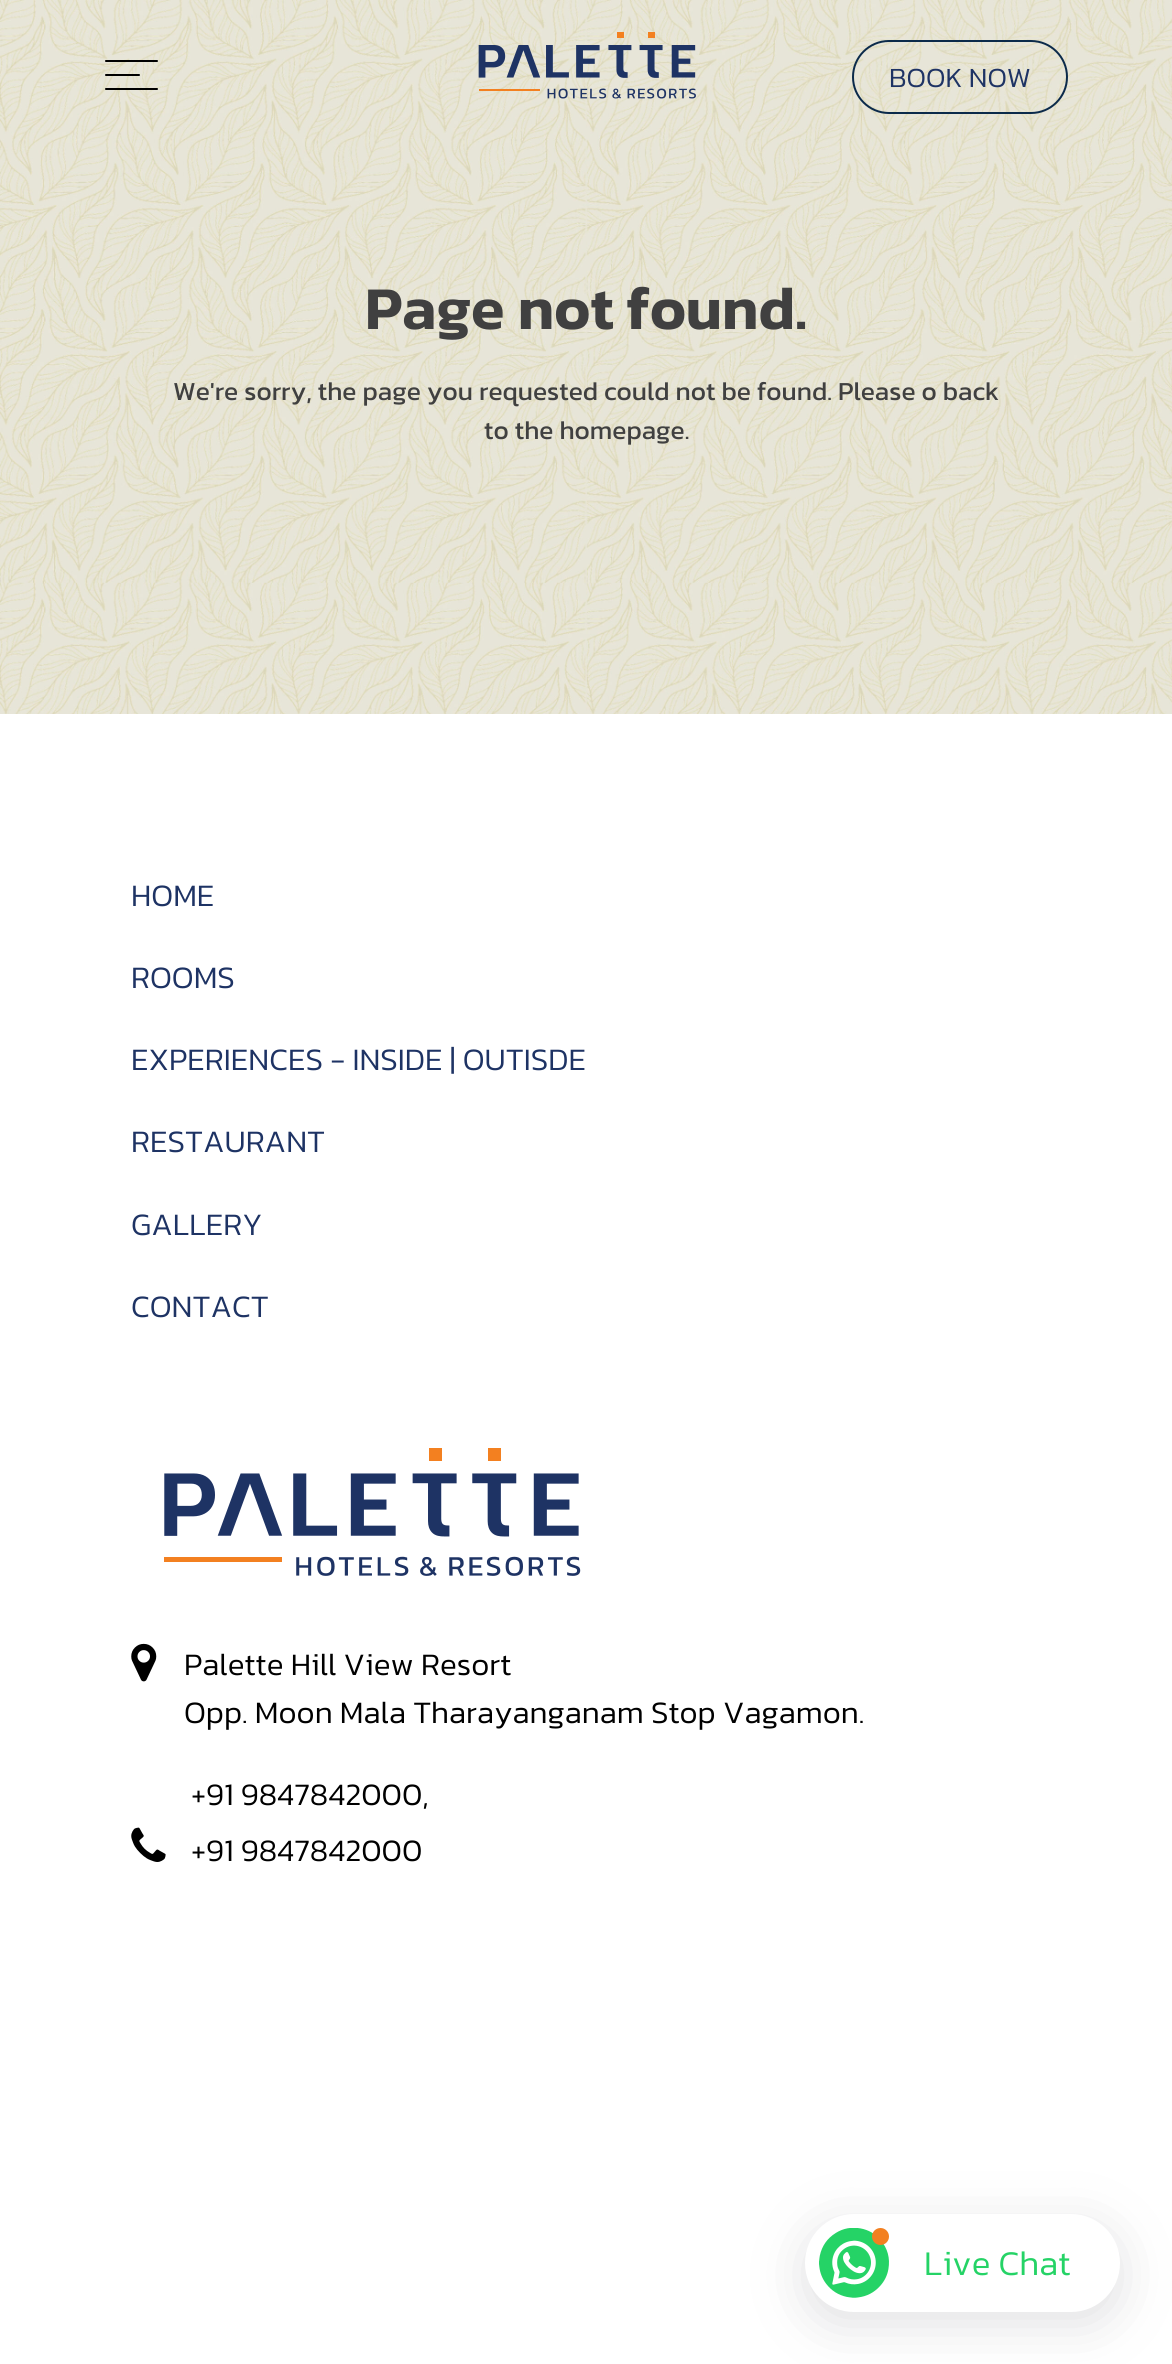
#include <cairo/cairo.h>
#include <math.h>
#include <stddef.h>

typedef struct { double x, y; const char *s; } line_t;
static cairo_t *cr;

static void rgb(unsigned color)
{
	cairo_set_source_rgb(cr, (color >> 16) / 255.0, (color >> 8 & 255) / 255.0, (color & 255) / 255.0);
}

static void rrect(double x, double y, double w, double h, double r)
{
	cairo_new_sub_path(cr);
	cairo_arc(cr, x + w - r, y + h - r, r, 0, M_PI / 2);
	cairo_arc(cr, x + r, y + h - r, r, M_PI / 2, M_PI);
	cairo_arc(cr, x + r, y + r, r, M_PI, 1.5 * M_PI);
	cairo_arc(cr, x + w - r, y + r, r, 1.5 * M_PI, 2 * M_PI);
	cairo_close_path(cr);
}

static void soft_shadow(double x, double y, double w, double h, double r, double blur, double alpha)
{
	cairo_push_group_with_content(cr, CAIRO_CONTENT_ALPHA);
	cairo_set_operator(cr, CAIRO_OPERATOR_SOURCE);
	for (int i = 15; i >= -15 && fmin(w, h) + blur * i / 3 > 0; i -= 2) {
		double e = blur * i / 6;
		cairo_set_source_rgba(cr, 0, 0, 0, alpha * erfc((i - 1) / 8.5) / 2);
		rrect(x - e, y - e, w + 2 * e, h + 2 * e, fmax(0, fmin(r + e + blur * .6, fmin(w, h) / 2 + e)));
		cairo_fill(cr);
	}
	cairo_pattern_t *soft = cairo_pop_group(cr);
	cairo_mask(cr, soft);
	cairo_pattern_destroy(soft);
}

static void image(const char *path, double x, double y, double w, double h)
{
	cairo_surface_t *image = cairo_image_surface_create_from_png(path);
	cairo_save(cr);
	cairo_set_source_surface(cr, image, x, y);
	cairo_rectangle(cr, x, y, w, h);
	cairo_fill(cr);
	cairo_restore(cr);
	cairo_surface_destroy(image);
}

int main(void) {
	cairo_surface_t *surface = cairo_image_surface_create(CAIRO_FORMAT_RGB24, 1172, 2364);
	cr = cairo_create(surface);
	cairo_font_options_t *options = cairo_font_options_create();
	cairo_font_options_set_hint_metrics(options, CAIRO_HINT_METRICS_OFF);
	cairo_font_options_set_hint_style(options, CAIRO_HINT_STYLE_NONE);
	cairo_set_font_options(cr, options);
	cairo_set_miter_limit(cr, 4);
	rgb(0xffffff);
	cairo_paint(cr);
	image("img/1.png", 0, 0, 1172, 714);
	image("img/2.png", 478, 32, 218, 67);
	rgb(0x000000);
	rrect(105, 74, 35, 2, 1);
	cairo_fill(cr);
	rrect(105, 60, 53, 2, 1);
	cairo_fill(cr);
	rrect(105, 88, 53, 2, 1);
	cairo_fill(cr);
	rrect(853, 41, 214, 72, 36);
	rgb(0x0b2a4a);
	cairo_stroke(cr);
	image("img/3.png", 164, 1448, 417, 128);
	image("img/4.png", 131, 1643, 26, 39);
	image("img/5.png", 131, 1827, 35, 35);
	rgb(0x64646f);
	soft_shadow(805, 2226, 315, 98, 49, 25.5, 0.2);
	rgb(0xffffff);
	rrect(805, 2214, 315, 98, 49);
	cairo_fill(cr);
	image("img/6.png", 819, 2228, 70, 70);
	rgb(0xf38020);
	cairo_arc(cr, 880.5, 2236.5, 8.5, 0, 2 * M_PI);
	cairo_fill(cr);
	cairo_select_font_face(cr, "Kanit Light", CAIRO_FONT_SLANT_NORMAL, CAIRO_FONT_WEIGHT_NORMAL);
	cairo_set_font_size(cr, 28);
	rgb(0x1e3364);
	cairo_move_to(cr, 889, 87);
	cairo_show_text(cr, "BOOK NOW");
	cairo_select_font_face(cr, "Kanit SemiBold", CAIRO_FONT_SLANT_NORMAL, CAIRO_FONT_WEIGHT_NORMAL);
	cairo_set_font_size(cr, 61.25);
	rgb(0x404040);
	cairo_move_to(cr, 365, 329);
	cairo_show_text(cr, "Page not found.");
	cairo_select_font_face(cr, "Kanit", CAIRO_FONT_SLANT_NORMAL, CAIRO_FONT_WEIGHT_NORMAL);
	cairo_set_font_size(cr, 26.25);
	cairo_move_to(cr, 173, 400);
	cairo_show_text(cr, "We're sorry, the page you requested could not be found. Please o back");
	cairo_move_to(cr, 484, 439);
	cairo_show_text(cr, "to the homepage.");
	cairo_select_font_face(cr, "Kanit Light", CAIRO_FONT_SLANT_NORMAL, CAIRO_FONT_WEIGHT_NORMAL);
	cairo_set_font_size(cr, 31.5);
	rgb(0x1e3364);
	{
		static const line_t items[] = {
			{131, 906, "HOME"},
			{131, 988, "ROOMS"},
			{131, 1070, "EXPERIENCES - INSIDE | OUTISDE"},
			{131, 1152, "RESTAURANT"},
			{131, 1235, "GALLERY"},
			{131, 1317, "CONTACT"},
		};
		for (size_t i = 0; i < sizeof items / sizeof *items; i++) {
			cairo_move_to(cr, items[i].x, items[i].y);
			cairo_show_text(cr, items[i].s);
		}
	}
	rgb(0x000000);
	{
		static const line_t items[] = {
			{184, 1675, "Palette Hill View Resort"},
			{184, 1723, "Opp. Moon Mala Tharayanganam Stop Vagamon."},
			{191, 1805, "+91 9847842000,"},
			{191, 1861, "+91 9847842000"},
		};
		for (size_t i = 0; i < sizeof items / sizeof *items; i++) {
			cairo_move_to(cr, items[i].x, items[i].y);
			cairo_show_text(cr, items[i].s);
		}
	}
	cairo_set_font_size(cr, 35);
	rgb(0x25d366);
	cairo_move_to(cr, 924, 2275);
	cairo_show_text(cr, "Live Chat");
	cairo_surface_write_to_png(surface, "page.png");
	cairo_font_options_destroy(options);
	cairo_destroy(cr);
	cairo_surface_destroy(surface);
	return 0;
}
